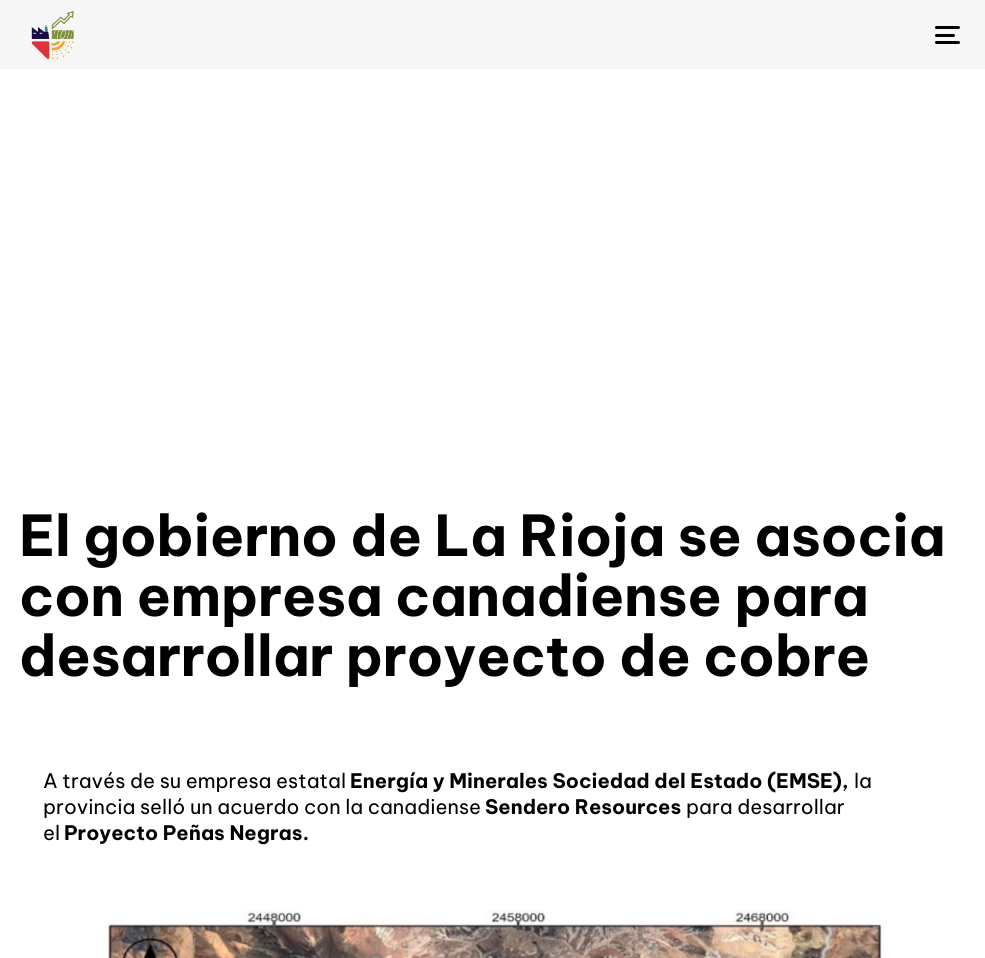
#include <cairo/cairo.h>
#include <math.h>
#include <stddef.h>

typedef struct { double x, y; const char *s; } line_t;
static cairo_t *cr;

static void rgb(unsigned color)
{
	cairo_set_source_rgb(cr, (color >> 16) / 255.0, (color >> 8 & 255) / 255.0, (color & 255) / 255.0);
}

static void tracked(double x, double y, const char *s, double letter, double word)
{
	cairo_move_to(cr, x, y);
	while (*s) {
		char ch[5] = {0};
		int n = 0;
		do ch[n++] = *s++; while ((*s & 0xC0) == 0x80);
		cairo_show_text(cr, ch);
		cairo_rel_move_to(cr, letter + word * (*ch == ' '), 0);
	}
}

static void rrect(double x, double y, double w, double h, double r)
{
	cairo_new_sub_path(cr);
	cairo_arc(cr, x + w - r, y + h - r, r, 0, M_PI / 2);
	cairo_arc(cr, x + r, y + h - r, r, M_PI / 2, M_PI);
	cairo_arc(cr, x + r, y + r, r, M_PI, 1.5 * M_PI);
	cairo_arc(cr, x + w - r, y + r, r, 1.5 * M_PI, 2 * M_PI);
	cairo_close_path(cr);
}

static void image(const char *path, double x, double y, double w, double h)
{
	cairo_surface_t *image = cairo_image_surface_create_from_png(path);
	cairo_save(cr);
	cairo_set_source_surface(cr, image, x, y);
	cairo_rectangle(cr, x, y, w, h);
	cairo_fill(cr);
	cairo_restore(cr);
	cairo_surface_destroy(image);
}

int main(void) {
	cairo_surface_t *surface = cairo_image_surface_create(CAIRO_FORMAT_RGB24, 985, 958);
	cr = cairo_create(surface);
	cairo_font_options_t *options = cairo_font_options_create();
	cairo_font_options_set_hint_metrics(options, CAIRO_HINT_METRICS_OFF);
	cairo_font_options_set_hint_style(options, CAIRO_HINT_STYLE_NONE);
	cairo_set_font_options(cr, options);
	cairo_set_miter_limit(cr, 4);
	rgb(0xffffff);
	cairo_paint(cr);
	rgb(0xf6f6f6);
	cairo_rectangle(cr, 0, 0, 985, 69);
	cairo_fill(cr);
	image("img/1.png", 31, 11, 43, 48);
	rgb(0x000000);
	rrect(935, 26, 25, 3, 1.5);
	cairo_fill(cr);
	rrect(935, 34, 20, 3, 1.5);
	cairo_fill(cr);
	rrect(935, 41, 25, 3, 1.5);
	cairo_fill(cr);
	image("img/2.png", 107, 909, 780, 49);
	cairo_select_font_face(cr, "Be Vietnam Pro", CAIRO_FONT_SLANT_NORMAL, CAIRO_FONT_WEIGHT_BOLD);
	cairo_set_font_size(cr, 56.25);
	{
		static const line_t items[] = {
			{19, 556, "El gobierno de La Rioja se asocia"},
			{19, 616, "con empresa canadiense para"},
			{19, 676, "desarrollar proyecto de cobre"},
		};
		for (size_t i = 0; i < sizeof items / sizeof *items; i++) {
			tracked(items[i].x, items[i].y, items[i].s, -0.4, 0);
		}
	}
	cairo_select_font_face(cr, "Be Vietnam Pro", CAIRO_FONT_SLANT_NORMAL, CAIRO_FONT_WEIGHT_NORMAL);
	cairo_set_font_size(cr, 20);
	cairo_move_to(cr, 43, 788);
	cairo_show_text(cr, "A través de su empresa estatal");
	cairo_select_font_face(cr, "Be Vietnam Pro", CAIRO_FONT_SLANT_NORMAL, CAIRO_FONT_WEIGHT_BOLD);
	cairo_move_to(cr, 350, 788);
	cairo_show_text(cr, "Energía y Minerales Sociedad del Estado (EMSE),");
	cairo_select_font_face(cr, "Be Vietnam Pro", CAIRO_FONT_SLANT_NORMAL, CAIRO_FONT_WEIGHT_NORMAL);
	cairo_move_to(cr, 854, 788);
	cairo_show_text(cr, "la");
	cairo_move_to(cr, 43, 814);
	cairo_show_text(cr, "provincia selló un acuerdo con la canadiense");
	cairo_select_font_face(cr, "Be Vietnam Pro", CAIRO_FONT_SLANT_NORMAL, CAIRO_FONT_WEIGHT_BOLD);
	cairo_move_to(cr, 485, 814);
	cairo_show_text(cr, "Sendero Resources");
	cairo_select_font_face(cr, "Be Vietnam Pro", CAIRO_FONT_SLANT_NORMAL, CAIRO_FONT_WEIGHT_NORMAL);
	cairo_move_to(cr, 686, 814);
	cairo_show_text(cr, "para desarrollar");
	cairo_move_to(cr, 43, 840);
	cairo_show_text(cr, "el");
	cairo_select_font_face(cr, "Be Vietnam Pro", CAIRO_FONT_SLANT_NORMAL, CAIRO_FONT_WEIGHT_BOLD);
	cairo_move_to(cr, 64, 840);
	cairo_show_text(cr, "Proyecto Peñas Negras.");
	cairo_surface_write_to_png(surface, "page.png");
	cairo_font_options_destroy(options);
	cairo_destroy(cr);
	cairo_surface_destroy(surface);
	return 0;
}
